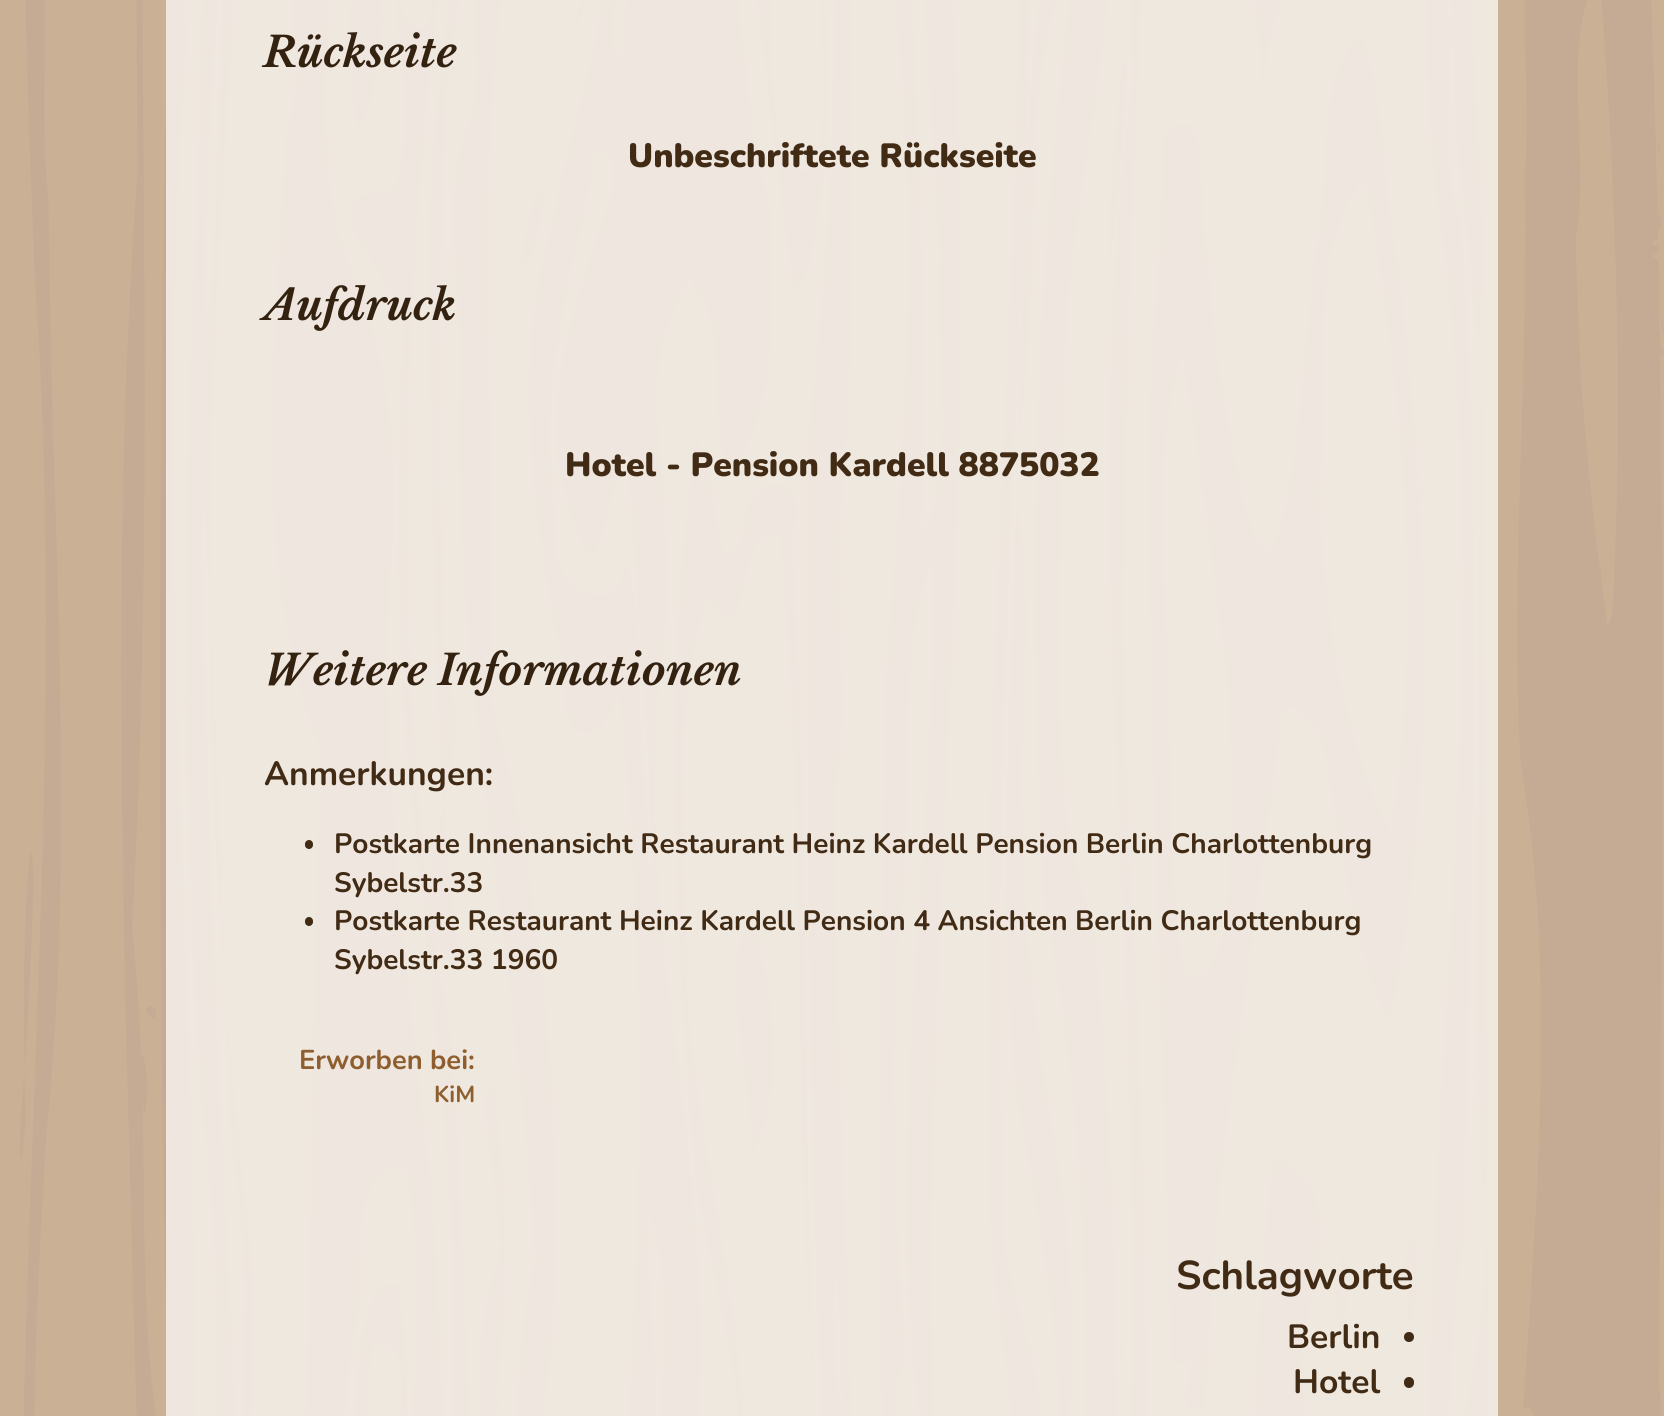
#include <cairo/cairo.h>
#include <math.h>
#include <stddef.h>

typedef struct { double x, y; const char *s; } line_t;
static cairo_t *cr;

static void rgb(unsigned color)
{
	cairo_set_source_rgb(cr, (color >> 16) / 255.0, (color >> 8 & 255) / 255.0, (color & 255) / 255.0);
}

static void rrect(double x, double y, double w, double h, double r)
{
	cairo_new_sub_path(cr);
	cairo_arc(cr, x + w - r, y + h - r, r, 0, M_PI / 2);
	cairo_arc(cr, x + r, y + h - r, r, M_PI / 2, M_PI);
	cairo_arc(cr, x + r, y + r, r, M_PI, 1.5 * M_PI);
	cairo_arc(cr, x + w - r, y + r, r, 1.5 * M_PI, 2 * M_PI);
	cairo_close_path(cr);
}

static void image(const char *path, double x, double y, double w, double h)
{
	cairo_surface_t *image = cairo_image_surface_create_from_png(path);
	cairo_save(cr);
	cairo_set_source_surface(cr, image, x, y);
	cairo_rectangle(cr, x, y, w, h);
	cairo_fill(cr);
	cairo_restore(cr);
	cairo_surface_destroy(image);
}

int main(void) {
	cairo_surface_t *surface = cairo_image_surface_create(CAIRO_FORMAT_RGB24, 1664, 1416);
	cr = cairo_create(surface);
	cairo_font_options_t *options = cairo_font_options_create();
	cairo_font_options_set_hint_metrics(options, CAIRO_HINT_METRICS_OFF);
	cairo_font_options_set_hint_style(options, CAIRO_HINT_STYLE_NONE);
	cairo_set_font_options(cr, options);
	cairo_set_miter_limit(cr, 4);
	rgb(0xffffff);
	cairo_paint(cr);
	image("img/1.png", 0, 0, 1664, 1416);
	cairo_set_source_rgba(cr, 1, 1, 1, 0.7);
	cairo_rectangle(cr, 166, 0, 1332, 1215);
	cairo_fill(cr);
	rgb(0x412b15);
	rrect(305, 840, 8, 9, 4);
	cairo_fill(cr);
	rrect(305, 917, 8, 9, 4);
	cairo_fill(cr);
	cairo_set_source_rgba(cr, 1, 1, 1, 0.7);
	cairo_rectangle(cr, 166, 1215, 1332, 201);
	cairo_fill(cr);
	rgb(0x412b15);
	cairo_arc(cr, 1409, 1337, 5, 0, 2 * M_PI);
	cairo_fill(cr);
	rrect(1404, 1377, 10, 11, 5);
	cairo_fill(cr);
	cairo_select_font_face(cr, "Libre Baskerville", CAIRO_FONT_SLANT_ITALIC, CAIRO_FONT_WEIGHT_BOLD);
	cairo_set_font_size(cr, 42);
	rgb(0x342211);
	cairo_move_to(cr, 264, 67);
	cairo_show_text(cr, "Rückseite");
	cairo_select_font_face(cr, "Nunito Black", CAIRO_FONT_SLANT_NORMAL, CAIRO_FONT_WEIGHT_NORMAL);
	cairo_set_font_size(cr, 33.6);
	rgb(0x412b15);
	cairo_move_to(cr, 628, 167);
	cairo_show_text(cr, "Unbeschriftete Rückseite");
	cairo_select_font_face(cr, "Libre Baskerville", CAIRO_FONT_SLANT_ITALIC, CAIRO_FONT_WEIGHT_BOLD);
	cairo_set_font_size(cr, 42);
	rgb(0x342211);
	cairo_move_to(cr, 264, 320);
	cairo_show_text(cr, "Aufdruck");
	cairo_select_font_face(cr, "Nunito Black", CAIRO_FONT_SLANT_NORMAL, CAIRO_FONT_WEIGHT_NORMAL);
	cairo_set_font_size(cr, 33.6);
	rgb(0x412b15);
	cairo_move_to(cr, 565, 476);
	cairo_show_text(cr, "Hotel - Pension Kardell 8875032");
	cairo_select_font_face(cr, "Libre Baskerville", CAIRO_FONT_SLANT_ITALIC, CAIRO_FONT_WEIGHT_BOLD);
	cairo_set_font_size(cr, 42);
	rgb(0x342211);
	cairo_move_to(cr, 264, 685);
	cairo_show_text(cr, "Weitere Informationen");
	cairo_select_font_face(cr, "Nunito", CAIRO_FONT_SLANT_NORMAL, CAIRO_FONT_WEIGHT_BOLD);
	cairo_set_font_size(cr, 33.6);
	rgb(0x412b15);
	cairo_move_to(cr, 264, 785);
	cairo_show_text(cr, "Anmerkungen:");
	cairo_set_font_size(cr, 28);
	{
		static const line_t items[] = {
			{334, 853, "Postkarte Innenansicht Restaurant Heinz Kardell Pension Berlin Charlottenburg"},
			{334, 892, "Sybelstr.33"},
			{334, 930, "Postkarte Restaurant Heinz Kardell Pension 4 Ansichten Berlin Charlottenburg"},
			{334, 969, "Sybelstr.33 1960"},
		};
		for (size_t i = 0; i < sizeof items / sizeof *items; i++) {
			cairo_move_to(cr, items[i].x, items[i].y);
			cairo_show_text(cr, items[i].s);
		}
	}
	cairo_set_font_size(cr, 27.25);
	rgb(0x8e5e2e);
	cairo_move_to(cr, 299, 1069);
	cairo_show_text(cr, "Erworben bei:");
	cairo_set_font_size(cr, 23);
	cairo_move_to(cr, 434, 1102);
	cairo_show_text(cr, "KiM");
	cairo_set_font_size(cr, 40.25);
	rgb(0x412b15);
	cairo_move_to(cr, 1176, 1289);
	cairo_show_text(cr, "Schlagworte");
	cairo_set_font_size(cr, 33.6);
	cairo_move_to(cr, 1287, 1348);
	cairo_show_text(cr, "Berlin");
	cairo_move_to(cr, 1293, 1393);
	cairo_show_text(cr, "Hotel");
	cairo_surface_write_to_png(surface, "page.png");
	cairo_font_options_destroy(options);
	cairo_destroy(cr);
	cairo_surface_destroy(surface);
	return 0;
}
